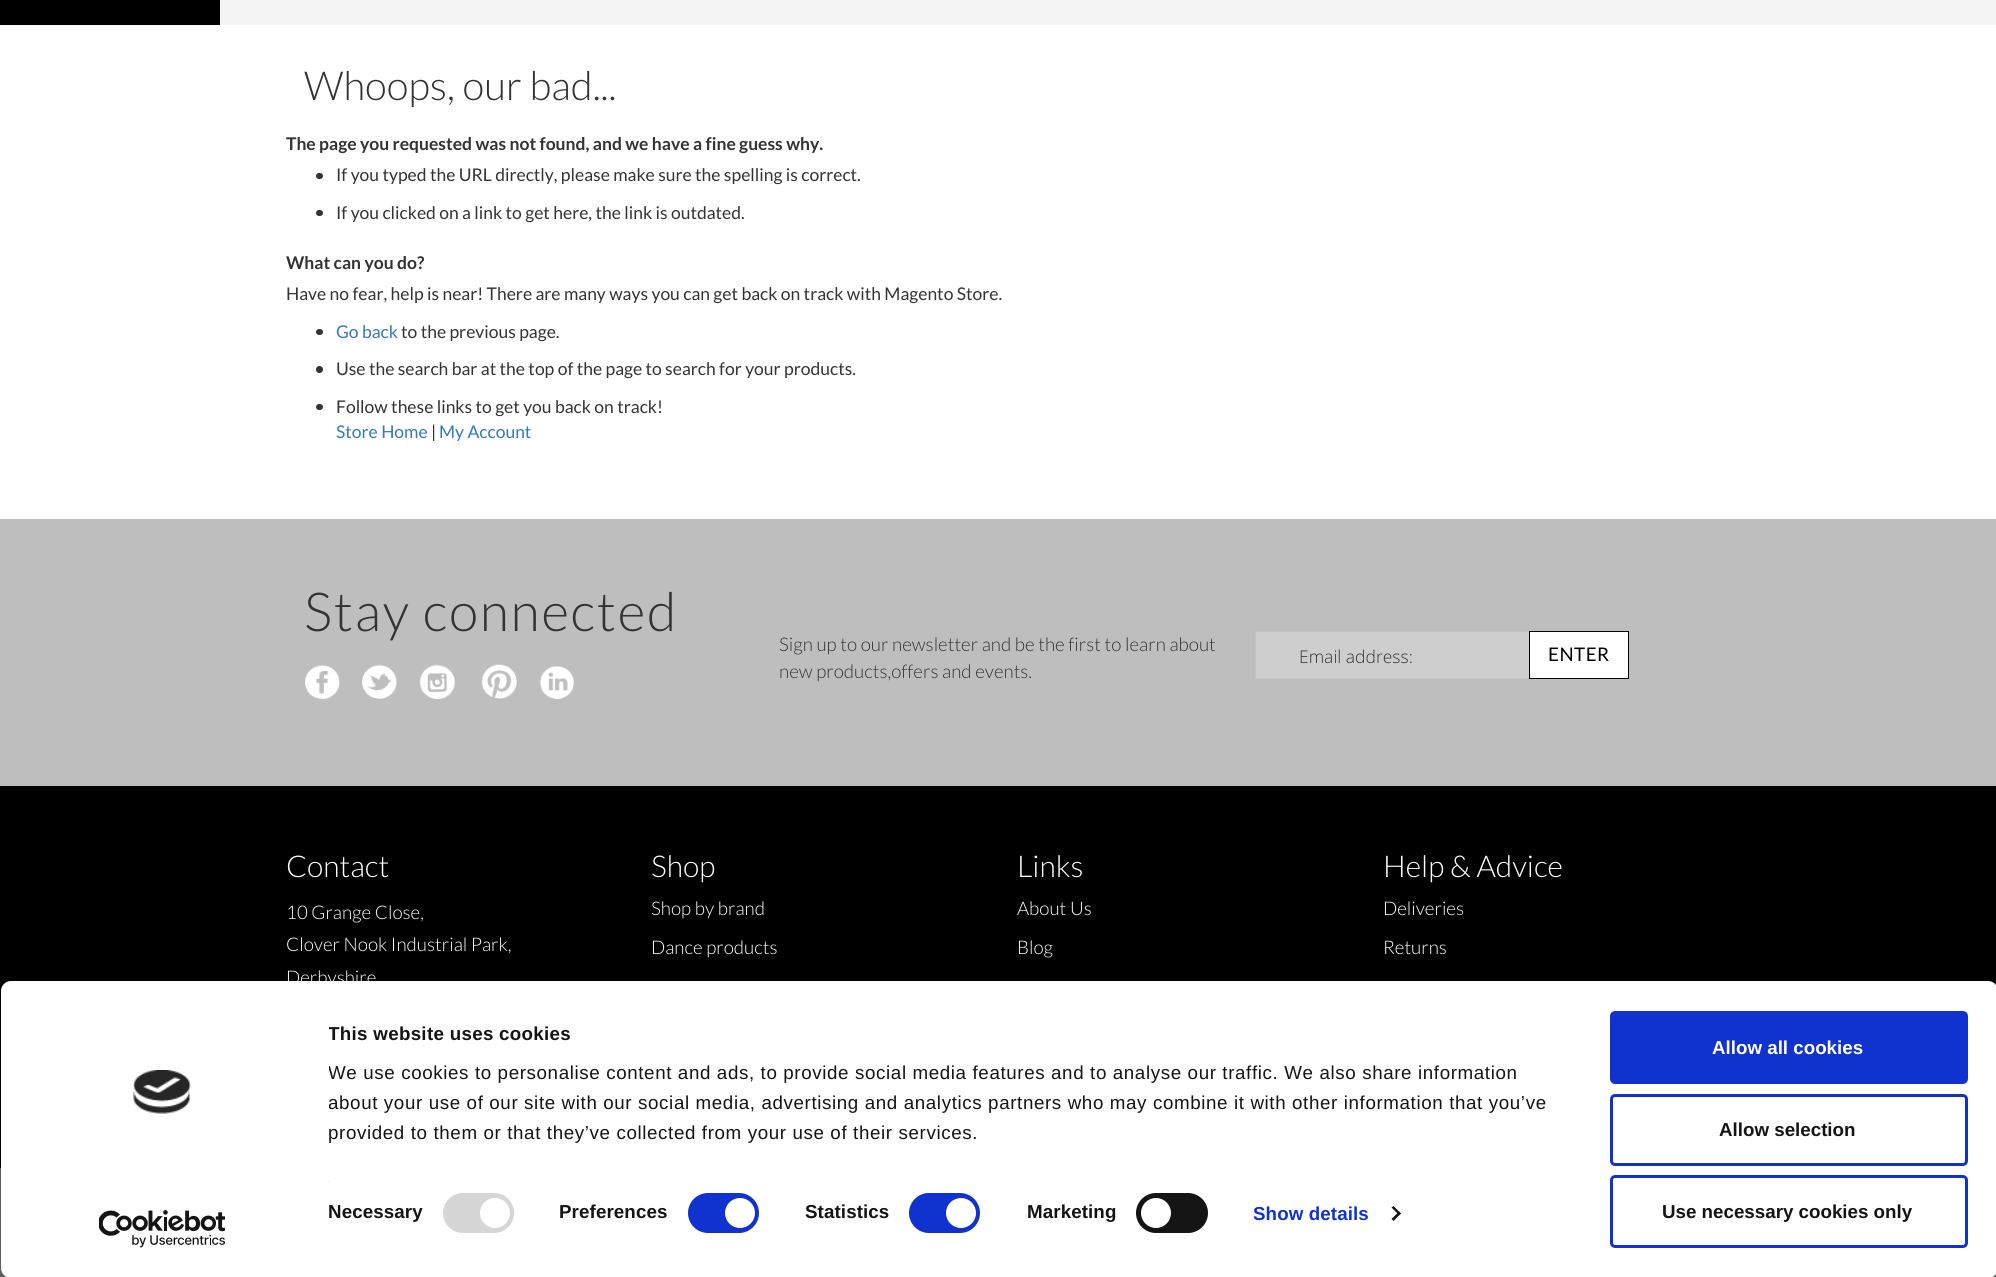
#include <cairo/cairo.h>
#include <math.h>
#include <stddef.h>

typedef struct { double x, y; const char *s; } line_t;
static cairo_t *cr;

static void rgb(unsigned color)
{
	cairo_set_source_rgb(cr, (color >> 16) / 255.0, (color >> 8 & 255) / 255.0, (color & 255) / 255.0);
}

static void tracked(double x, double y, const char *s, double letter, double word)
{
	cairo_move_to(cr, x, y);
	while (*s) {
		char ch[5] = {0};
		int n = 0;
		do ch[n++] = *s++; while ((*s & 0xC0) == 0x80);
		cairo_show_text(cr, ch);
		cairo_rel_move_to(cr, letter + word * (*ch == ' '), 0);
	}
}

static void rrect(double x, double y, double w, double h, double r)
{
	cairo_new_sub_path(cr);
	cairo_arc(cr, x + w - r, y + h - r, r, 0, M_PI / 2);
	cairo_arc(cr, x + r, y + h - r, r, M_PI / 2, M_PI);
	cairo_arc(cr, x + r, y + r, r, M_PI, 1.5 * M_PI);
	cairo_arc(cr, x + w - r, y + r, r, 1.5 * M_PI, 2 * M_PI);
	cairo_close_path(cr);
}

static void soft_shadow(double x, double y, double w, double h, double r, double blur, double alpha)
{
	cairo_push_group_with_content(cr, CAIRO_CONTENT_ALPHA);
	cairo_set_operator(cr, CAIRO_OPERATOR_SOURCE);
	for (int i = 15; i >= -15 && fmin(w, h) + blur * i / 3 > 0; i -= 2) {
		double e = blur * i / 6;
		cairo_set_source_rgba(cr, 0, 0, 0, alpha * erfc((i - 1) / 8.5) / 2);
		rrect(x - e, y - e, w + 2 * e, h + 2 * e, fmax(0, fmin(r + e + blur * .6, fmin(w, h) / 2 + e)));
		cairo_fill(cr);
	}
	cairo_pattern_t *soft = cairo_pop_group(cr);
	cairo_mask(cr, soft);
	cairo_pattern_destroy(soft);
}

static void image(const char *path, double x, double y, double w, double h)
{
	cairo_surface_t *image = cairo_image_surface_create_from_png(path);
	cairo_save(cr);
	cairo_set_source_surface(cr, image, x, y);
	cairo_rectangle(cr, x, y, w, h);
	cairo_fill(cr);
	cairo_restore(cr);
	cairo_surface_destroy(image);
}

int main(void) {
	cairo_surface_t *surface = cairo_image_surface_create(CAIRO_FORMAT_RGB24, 1996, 1277);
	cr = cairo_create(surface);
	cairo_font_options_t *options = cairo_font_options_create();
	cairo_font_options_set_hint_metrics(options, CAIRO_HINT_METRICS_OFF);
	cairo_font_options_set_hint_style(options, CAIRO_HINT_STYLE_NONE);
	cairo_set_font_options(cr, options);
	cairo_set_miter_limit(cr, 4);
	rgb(0xffffff);
	cairo_paint(cr);
	rgb(0xf4f4f4);
	cairo_rectangle(cr, 220, 0, 1776, 25);
	cairo_fill(cr);
	rgb(0x000000);
	cairo_rectangle(cr, 0, 0, 220, 25);
	cairo_fill(cr);
	rgb(0x333333);
	rrect(316, 173, 7, 6, 3);
	cairo_fill(cr);
	rrect(316, 210, 7, 6, 3);
	cairo_fill(cr);
	rrect(316, 329, 7, 6, 3);
	cairo_fill(cr);
	cairo_arc(cr, 319.5, 369.5, 3.5, 0, 2 * M_PI);
	cairo_fill(cr);
	rrect(316, 404, 7, 6, 3);
	cairo_fill(cr);
	rgb(0xbebebe);
	cairo_rectangle(cr, 0, 519, 1996, 267);
	cairo_fill(cr);
	image("img/1.png", 305, 665, 35, 34);
	image("img/2.png", 362, 664, 35, 35);
	image("img/3.png", 419, 664, 36, 36);
	image("img/4.png", 481, 664, 36, 35);
	image("img/5.png", 539, 666, 35, 33);
	rgb(0xcecece);
	rrect(1255.5, 631.5, 337, 47, 0.5);
	cairo_fill_preserve(cr);
	rgb(0xc2c2c2);
	cairo_set_line_width(cr, 1);
	cairo_stroke(cr);
	rgb(0xffffff);
	cairo_rectangle(cr, 1529.5, 631.5, 99, 47);
	cairo_fill_preserve(cr);
	rgb(0x000000);
	cairo_stroke(cr);
	cairo_rectangle(cr, 0, 786, 1996, 382);
	cairo_fill(cr);
	rgb(0x6f6f6f);
	cairo_rectangle(cr, 0, 1168, 1996, 109);
	cairo_fill(cr);
	rgb(0x000000);
	soft_shadow(1, 1019, 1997, 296, 10, 44, 0.3);
	rgb(0xffffff);
	rrect(1, 981, 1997, 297, 10);
	cairo_fill(cr);
	image("img/6.png", 133, 1070, 58, 44);
	image("img/7.png", 99, 1210, 126, 38);
	rgb(0xe5e5e5);
	cairo_rectangle(cr, 328, 1181, 1, 1);
	cairo_fill(cr);
	rgb(0xd6d6d6);
	rrect(443, 1193, 71, 40, 20);
	cairo_fill(cr);
	rgb(0xffffff);
	cairo_arc(cr, 495, 1213, 15, 0, 2 * M_PI);
	cairo_fill(cr);
	rgb(0x1032cf);
	rrect(688, 1193, 71, 40, 20);
	cairo_fill(cr);
	rgb(0xffffff);
	cairo_arc(cr, 740, 1213, 15, 0, 2 * M_PI);
	cairo_fill(cr);
	rgb(0x1032cf);
	rrect(909, 1193, 71, 40, 20);
	cairo_fill(cr);
	rgb(0xffffff);
	cairo_arc(cr, 961, 1213, 15, 0, 2 * M_PI);
	cairo_fill(cr);
	rgb(0x141414);
	rrect(1136, 1193, 72, 40, 20);
	cairo_fill(cr);
	rgb(0xffffff);
	cairo_arc(cr, 1156, 1213, 15, 0, 2 * M_PI);
	cairo_fill(cr);
	rgb(0x141414);
	cairo_new_path(cr);
	cairo_move_to(cr, 1393.5, 1206);
	cairo_line_to(cr, 1401, 1213.5);
	cairo_line_to(cr, 1399, 1215);
	cairo_line_to(cr, 1391.5, 1207.5);
	cairo_close_path(cr);
	cairo_fill(cr);
	cairo_new_path(cr);
	cairo_move_to(cr, 1399, 1211.5);
	cairo_line_to(cr, 1401, 1213.5);
	cairo_line_to(cr, 1393.5, 1221);
	cairo_line_to(cr, 1391.5, 1219);
	cairo_close_path(cr);
	cairo_fill(cr);
	rgb(0x1032cf);
	rrect(1611.5, 1012.5, 355, 70, 3.5);
	cairo_fill_preserve(cr);
	cairo_set_line_width(cr, 3);
	cairo_stroke(cr);
	rrect(1611.5, 1095.5, 355, 69, 3.5);
	cairo_stroke(cr);
	rrect(1611.5, 1176.5, 355, 70, 3.5);
	cairo_stroke(cr);
	cairo_select_font_face(cr, "Lato Light", CAIRO_FONT_SLANT_NORMAL, CAIRO_FONT_WEIGHT_NORMAL);
	cairo_set_font_size(cr, 40);
	rgb(0x333333);
	cairo_move_to(cr, 304, 100);
	cairo_show_text(cr, "Whoops, our bad...");
	cairo_select_font_face(cr, "Lato", CAIRO_FONT_SLANT_NORMAL, CAIRO_FONT_WEIGHT_BOLD);
	cairo_set_font_size(cr, 17.5);
	cairo_move_to(cr, 286, 150);
	cairo_show_text(cr, "The page you requested was not found, and we have a fine guess why.");
	cairo_select_font_face(cr, "Lato", CAIRO_FONT_SLANT_NORMAL, CAIRO_FONT_WEIGHT_NORMAL);
	cairo_move_to(cr, 336, 181);
	cairo_show_text(cr, "If you typed the URL directly, please make sure the spelling is correct.");
	cairo_move_to(cr, 336, 219);
	cairo_show_text(cr, "If you clicked on a link to get here, the link is outdated.");
	cairo_select_font_face(cr, "Lato", CAIRO_FONT_SLANT_NORMAL, CAIRO_FONT_WEIGHT_BOLD);
	cairo_move_to(cr, 286, 269);
	cairo_show_text(cr, "What can you do?");
	cairo_select_font_face(cr, "Lato", CAIRO_FONT_SLANT_NORMAL, CAIRO_FONT_WEIGHT_NORMAL);
	cairo_move_to(cr, 286, 300);
	cairo_show_text(cr, "Have no fear, help is near! There are many ways you can get back on track with Magento Store.");
	rgb(0x337ab7);
	cairo_move_to(cr, 336, 338);
	cairo_show_text(cr, "Go back");
	rgb(0x333333);
	{
		static const line_t items[] = {
			{401, 338, "to the previous page."},
			{336, 375, "Use the search bar at the top of the page to search for your products."},
			{336, 413, "Follow these links to get you back on track!"},
		};
		for (size_t i = 0; i < sizeof items / sizeof *items; i++) {
			cairo_move_to(cr, items[i].x, items[i].y);
			cairo_show_text(cr, items[i].s);
		}
	}
	rgb(0x337ab7);
	cairo_move_to(cr, 336, 438);
	cairo_show_text(cr, "Store Home");
	rgb(0x333333);
	cairo_move_to(cr, 431, 438);
	cairo_show_text(cr, "|");
	rgb(0x337ab7);
	cairo_move_to(cr, 439, 438);
	cairo_show_text(cr, "My Account");
	cairo_select_font_face(cr, "Lato Light", CAIRO_FONT_SLANT_NORMAL, CAIRO_FONT_WEIGHT_NORMAL);
	cairo_set_font_size(cr, 53.75);
	rgb(0x333333);
	tracked(304, 631, "Stay connected", 1.75, 0);
	cairo_set_font_size(cr, 18.75);
	cairo_move_to(cr, 779, 651);
	cairo_show_text(cr, "Sign up to our newsletter and be the first to learn about");
	cairo_move_to(cr, 779, 678);
	cairo_show_text(cr, "new products,offers and events.");
	cairo_select_font_face(cr, "Open Sans Light", CAIRO_FONT_SLANT_NORMAL, CAIRO_FONT_WEIGHT_NORMAL);
	cairo_set_font_size(cr, 17.5);
	cairo_move_to(cr, 1299, 663);
	cairo_show_text(cr, "Email address:");
	cairo_select_font_face(cr, "Lato", CAIRO_FONT_SLANT_NORMAL, CAIRO_FONT_WEIGHT_NORMAL);
	cairo_set_font_size(cr, 18.75);
	rgb(0x000000);
	tracked(1548, 661, "ENTER", 0.5, 0);
	cairo_select_font_face(cr, "Lato Light", CAIRO_FONT_SLANT_NORMAL, CAIRO_FONT_WEIGHT_NORMAL);
	cairo_set_font_size(cr, 30);
	rgb(0xffffff);
	cairo_move_to(cr, 286, 877);
	cairo_show_text(cr, "Contact");
	cairo_set_font_size(cr, 18.75);
	{
		static const line_t items[] = {
			{286, 919, "10 Grange Close,"},
			{286, 951, "Clover Nook Industrial Park,"},
			{286, 984, "Derbyshire"},
		};
		for (size_t i = 0; i < sizeof items / sizeof *items; i++) {
			cairo_move_to(cr, items[i].x, items[i].y);
			cairo_show_text(cr, items[i].s);
		}
	}
	cairo_set_font_size(cr, 30);
	cairo_move_to(cr, 651, 877);
	cairo_show_text(cr, "Shop");
	cairo_set_font_size(cr, 18.75);
	cairo_move_to(cr, 651, 915);
	cairo_show_text(cr, "Shop by brand");
	cairo_move_to(cr, 651, 954);
	cairo_show_text(cr, "Dance products");
	cairo_set_font_size(cr, 30);
	cairo_move_to(cr, 1017, 877);
	cairo_show_text(cr, "Links");
	cairo_set_font_size(cr, 18.75);
	cairo_move_to(cr, 1017, 915);
	cairo_show_text(cr, "About Us");
	cairo_move_to(cr, 1017, 954);
	cairo_show_text(cr, "Blog");
	cairo_set_font_size(cr, 30);
	cairo_move_to(cr, 1383, 877);
	cairo_show_text(cr, "Help & Advice");
	cairo_set_font_size(cr, 18.75);
	cairo_move_to(cr, 1383, 915);
	cairo_show_text(cr, "Deliveries");
	cairo_move_to(cr, 1383, 954);
	cairo_show_text(cr, "Returns");
	cairo_save(cr);
	cairo_rectangle(cr, 329, 1019, 1245, 129);
	cairo_clip(cr);
	cairo_select_font_face(cr, "Liberation Sans", CAIRO_FONT_SLANT_NORMAL, CAIRO_FONT_WEIGHT_BOLD);
	rgb(0x141414);
	tracked(328, 1040, "This website uses cookies", 0.3, 0);
	cairo_select_font_face(cr, "Liberation Sans", CAIRO_FONT_SLANT_NORMAL, CAIRO_FONT_WEIGHT_NORMAL);
	{
		static const line_t items[] = {
			{328, 1079, "We use cookies to personalise content and ads, to provide social media features and to analyse our traffic. We also share information"},
			{328, 1109, "about your use of our site with our social media, advertising and analytics partners who may combine it with other information that you’ve"},
			{328, 1139, "provided to them or that they’ve collected from your use of their services."},
		};
		for (size_t i = 0; i < sizeof items / sizeof *items; i++) {
			tracked(items[i].x, items[i].y, items[i].s, 0.62, 0);
		}
	}
	cairo_restore(cr);
	cairo_select_font_face(cr, "Liberation Sans", CAIRO_FONT_SLANT_NORMAL, CAIRO_FONT_WEIGHT_BOLD);
	rgb(0x141414);
	{
		static const line_t items[] = {
			{328, 1218, "Necessary"},
			{559, 1218, "Preferences"},
			{805, 1218, "Statistics"},
			{1027, 1218, "Marketing"},
		};
		for (size_t i = 0; i < sizeof items / sizeof *items; i++) {
			tracked(items[i].x, items[i].y, items[i].s, 0.1, 0);
		}
	}
	rgb(0x1032cf);
	tracked(1253, 1220, "Show details", 0.1, 0);
	rgb(0xffffff);
	cairo_move_to(cr, 1712, 1054);
	cairo_show_text(cr, "Allow all cookies");
	rgb(0x141414);
	cairo_move_to(cr, 1719, 1136);
	cairo_show_text(cr, "Allow selection");
	cairo_move_to(cr, 1662, 1218);
	cairo_show_text(cr, "Use necessary cookies only");
	cairo_surface_write_to_png(surface, "page.png");
	cairo_font_options_destroy(options);
	cairo_destroy(cr);
	cairo_surface_destroy(surface);
	return 0;
}
